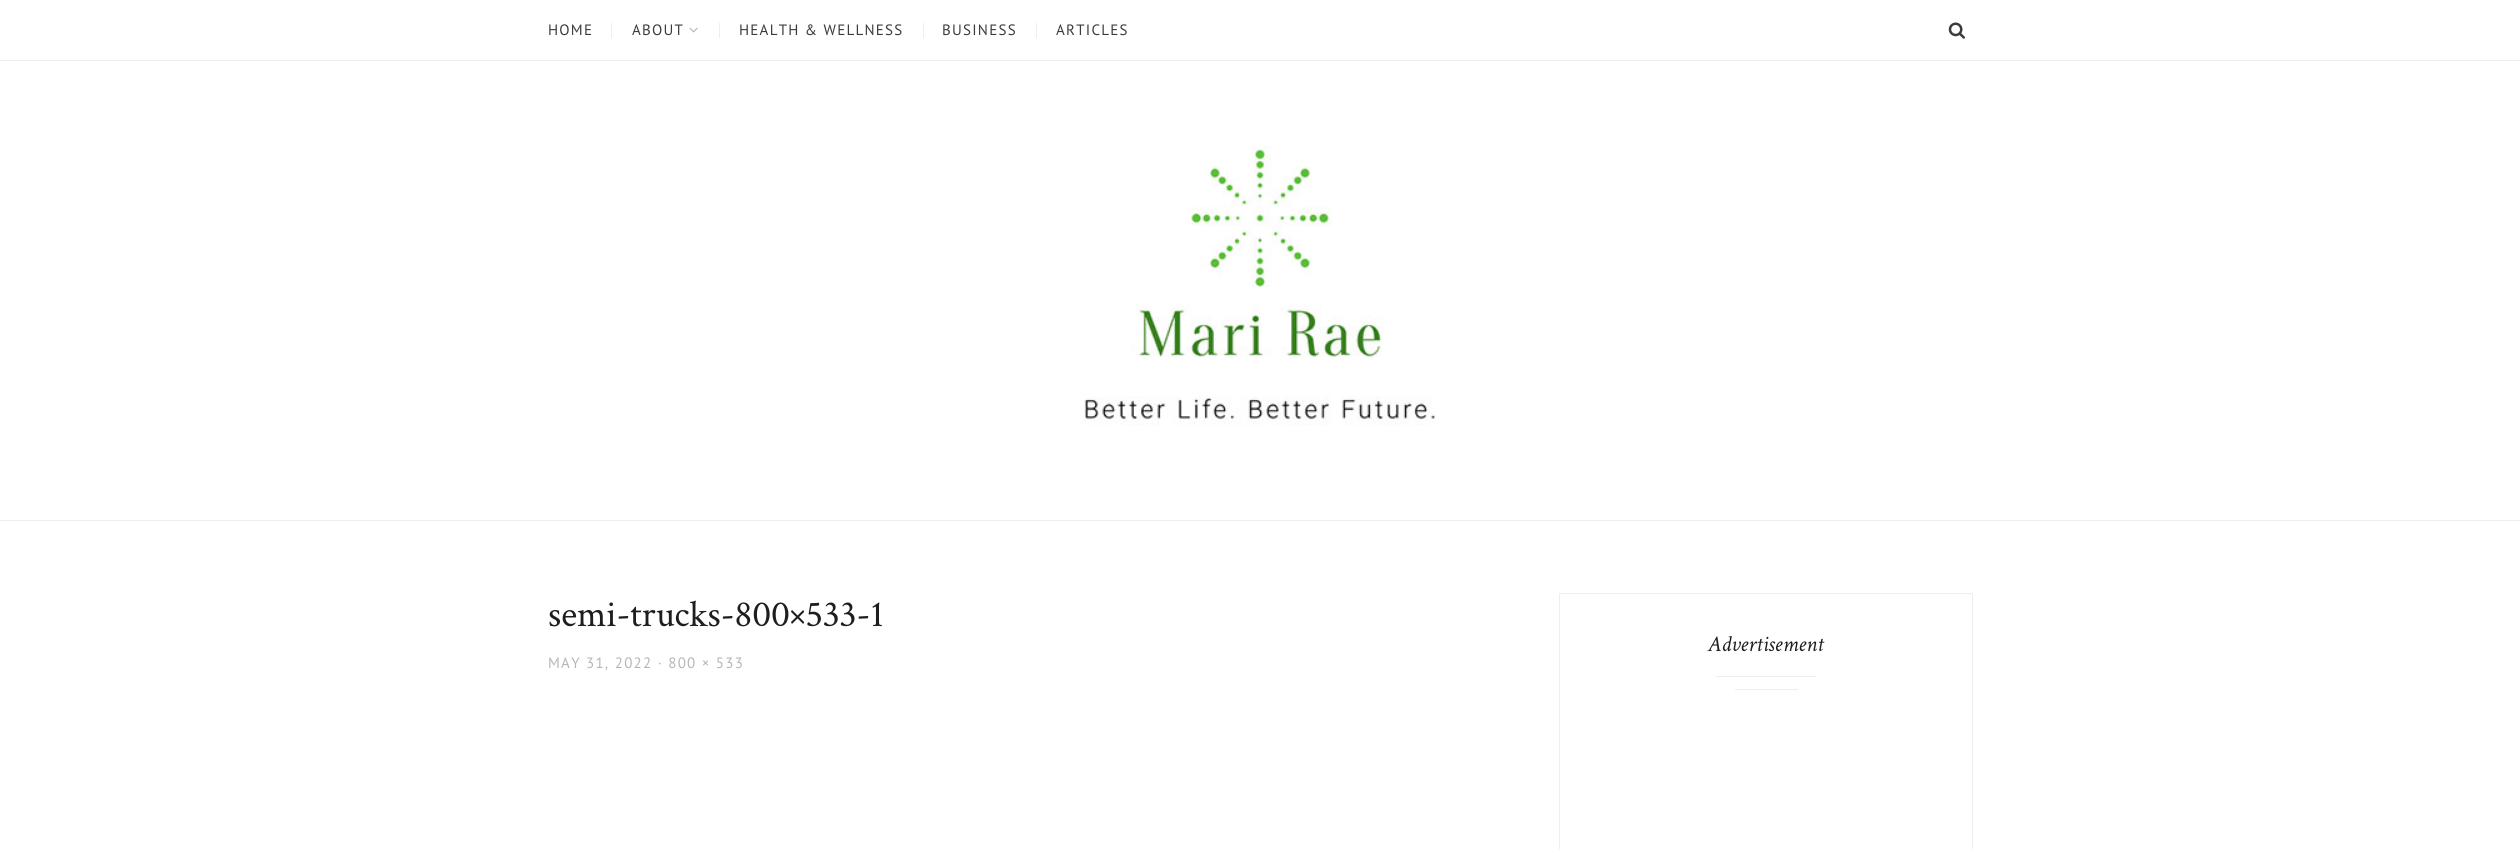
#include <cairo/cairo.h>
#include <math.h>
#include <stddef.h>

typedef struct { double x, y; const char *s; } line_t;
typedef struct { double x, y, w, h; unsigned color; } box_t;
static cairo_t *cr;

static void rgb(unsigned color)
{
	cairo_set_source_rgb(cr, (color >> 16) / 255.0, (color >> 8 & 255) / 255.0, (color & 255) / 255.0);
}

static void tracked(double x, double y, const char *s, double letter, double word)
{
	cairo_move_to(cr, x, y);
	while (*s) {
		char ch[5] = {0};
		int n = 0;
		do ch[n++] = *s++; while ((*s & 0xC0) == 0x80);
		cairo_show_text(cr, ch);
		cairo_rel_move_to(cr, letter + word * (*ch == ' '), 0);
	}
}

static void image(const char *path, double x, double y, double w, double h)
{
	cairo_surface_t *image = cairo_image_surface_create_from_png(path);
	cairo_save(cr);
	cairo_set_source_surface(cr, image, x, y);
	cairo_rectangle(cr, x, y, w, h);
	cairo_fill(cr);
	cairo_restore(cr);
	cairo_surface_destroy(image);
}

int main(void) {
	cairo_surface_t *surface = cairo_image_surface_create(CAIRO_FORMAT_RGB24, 2520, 849);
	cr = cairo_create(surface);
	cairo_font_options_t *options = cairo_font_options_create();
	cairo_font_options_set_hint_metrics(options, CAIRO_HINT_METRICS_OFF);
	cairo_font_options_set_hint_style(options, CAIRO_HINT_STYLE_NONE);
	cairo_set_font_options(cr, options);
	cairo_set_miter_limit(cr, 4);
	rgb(0xffffff);
	cairo_paint(cr);
	rgb(0xeeeeee);
	cairo_rectangle(cr, 611, 23, 1, 15);
	cairo_fill(cr);
	image("img/1.png", 689, 27, 9, 6);
	{
		static const box_t items[] = {
			{719, 23, 1, 15, 0xeeeeee},
			{923, 23, 1, 15, 0xeeeeee},
			{1036, 23, 1, 15, 0xeeeeee},
		};
		for (size_t i = 0; i < sizeof items / sizeof *items; i++) {
			rgb(items[i].color);
			cairo_rectangle(cr, items[i].x, items[i].y, items[i].w, items[i].h);
			cairo_fill(cr);
		}
	}
	image("img/2.png", 1948, 22, 17, 17);
	cairo_rectangle(cr, 0, 60, 2520, 1);
	cairo_fill(cr);
	cairo_rectangle(cr, 0, 520, 2520, 1);
	cairo_fill(cr);
	image("img/3.png", 1084, 146, 352, 280);
	cairo_rectangle(cr, 1559.5, 593.5, 413, 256);
	cairo_set_line_width(cr, 1);
	cairo_stroke(cr);
	cairo_rectangle(cr, 1716, 676, 100, 1);
	cairo_fill(cr);
	cairo_rectangle(cr, 1735, 689, 63, 1);
	cairo_fill(cr);
	cairo_select_font_face(cr, "PT Sans", CAIRO_FONT_SLANT_NORMAL, CAIRO_FONT_WEIGHT_NORMAL);
	cairo_set_font_size(cr, 15);
	rgb(0x3a3b3d);
	{
		static const line_t items[] = {
			{548, 35, "HOME"},
			{632, 35, "ABOUT"},
			{739, 35, "HEALTH & WELLNESS"},
			{942, 35, "BUSINESS"},
			{1056, 35, "ARTICLES"},
		};
		for (size_t i = 0; i < sizeof items / sizeof *items; i++) {
			tracked(items[i].x, items[i].y, items[i].s, 1.25, 0);
		}
	}
	cairo_select_font_face(cr, "Crimson Text", CAIRO_FONT_SLANT_NORMAL, CAIRO_FONT_WEIGHT_NORMAL);
	cairo_set_font_size(cr, 37.5);
	rgb(0x1d1e1f);
	cairo_move_to(cr, 548, 626);
	cairo_show_text(cr, "semi-trucks-800×533-1");
	cairo_select_font_face(cr, "PT Sans", CAIRO_FONT_SLANT_NORMAL, CAIRO_FONT_WEIGHT_NORMAL);
	cairo_set_font_size(cr, 15);
	rgb(0xb6b6b6);
	tracked(548, 668, "MAY 31, 2022 · 800 × 533", 1.25, 0);
	cairo_select_font_face(cr, "Crimson Text", CAIRO_FONT_SLANT_ITALIC, CAIRO_FONT_WEIGHT_NORMAL);
	cairo_set_font_size(cr, 22.5);
	rgb(0x1d1e1f);
	cairo_move_to(cr, 1708, 651);
	cairo_show_text(cr, "Advertisement");
	cairo_surface_write_to_png(surface, "page.png");
	cairo_font_options_destroy(options);
	cairo_destroy(cr);
	cairo_surface_destroy(surface);
	return 0;
}
